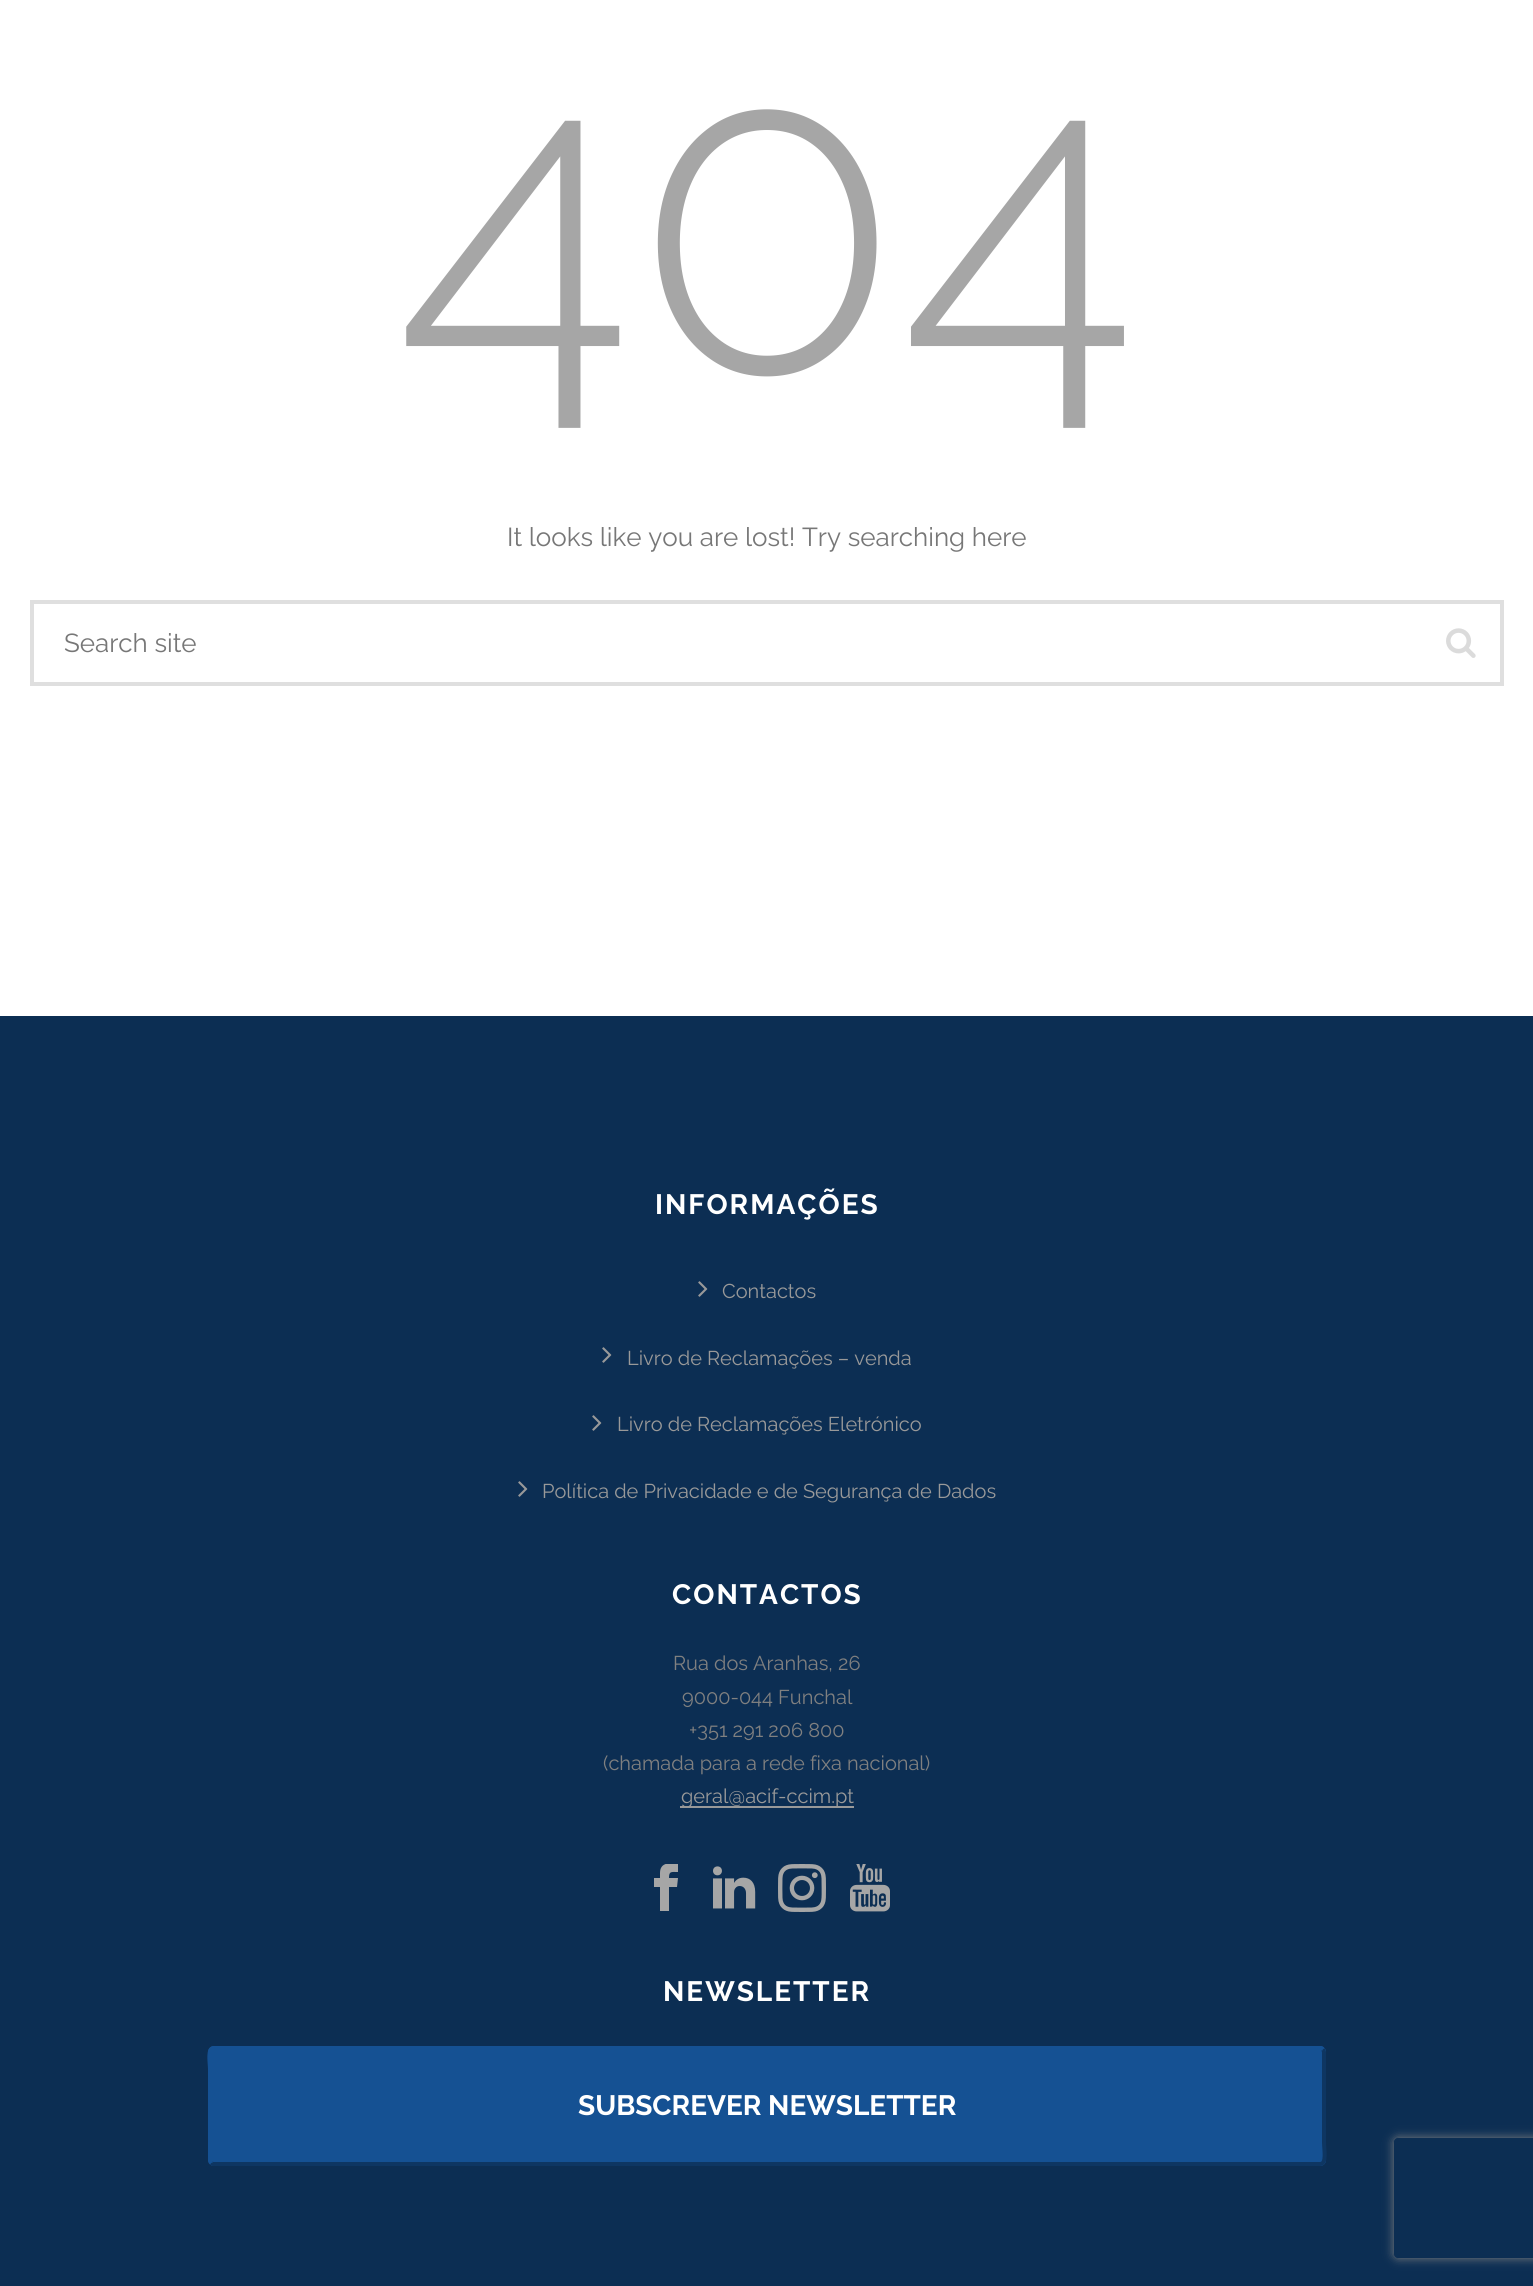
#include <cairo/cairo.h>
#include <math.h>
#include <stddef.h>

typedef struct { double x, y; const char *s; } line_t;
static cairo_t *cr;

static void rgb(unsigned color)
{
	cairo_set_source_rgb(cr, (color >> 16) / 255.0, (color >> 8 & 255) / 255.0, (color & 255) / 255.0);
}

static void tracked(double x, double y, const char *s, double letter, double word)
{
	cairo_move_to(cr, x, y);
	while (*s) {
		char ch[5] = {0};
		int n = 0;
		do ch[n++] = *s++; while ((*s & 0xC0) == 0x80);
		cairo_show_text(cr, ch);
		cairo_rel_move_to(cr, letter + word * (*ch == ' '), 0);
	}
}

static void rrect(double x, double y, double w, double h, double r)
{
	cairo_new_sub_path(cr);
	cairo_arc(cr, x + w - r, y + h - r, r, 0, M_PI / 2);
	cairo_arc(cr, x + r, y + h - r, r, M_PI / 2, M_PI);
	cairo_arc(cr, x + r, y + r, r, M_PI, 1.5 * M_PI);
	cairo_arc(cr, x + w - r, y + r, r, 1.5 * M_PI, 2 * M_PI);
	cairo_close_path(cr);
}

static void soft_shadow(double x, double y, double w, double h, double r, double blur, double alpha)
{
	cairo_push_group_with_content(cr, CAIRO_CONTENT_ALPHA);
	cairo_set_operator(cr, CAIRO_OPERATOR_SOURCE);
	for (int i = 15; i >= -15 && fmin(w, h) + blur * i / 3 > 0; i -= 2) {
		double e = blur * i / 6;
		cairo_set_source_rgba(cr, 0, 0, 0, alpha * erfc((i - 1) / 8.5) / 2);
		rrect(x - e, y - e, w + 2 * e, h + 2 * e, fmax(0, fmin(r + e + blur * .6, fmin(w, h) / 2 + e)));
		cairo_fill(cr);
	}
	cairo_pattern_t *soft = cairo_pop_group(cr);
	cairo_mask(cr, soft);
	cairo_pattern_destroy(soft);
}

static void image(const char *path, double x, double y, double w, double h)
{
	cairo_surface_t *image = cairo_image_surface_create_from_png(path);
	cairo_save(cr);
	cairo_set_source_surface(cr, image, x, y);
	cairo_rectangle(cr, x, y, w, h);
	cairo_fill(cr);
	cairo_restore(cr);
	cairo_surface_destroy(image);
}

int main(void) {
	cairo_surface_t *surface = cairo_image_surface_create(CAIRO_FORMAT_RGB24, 1533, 2286);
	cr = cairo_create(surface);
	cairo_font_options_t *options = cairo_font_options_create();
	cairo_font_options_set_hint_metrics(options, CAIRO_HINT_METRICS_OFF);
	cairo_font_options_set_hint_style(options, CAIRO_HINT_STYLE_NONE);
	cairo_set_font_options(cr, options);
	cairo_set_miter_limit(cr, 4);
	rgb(0xffffff);
	cairo_paint(cr);
	cairo_rectangle(cr, 32, 602, 1470, 82);
	rgb(0xdfdfdf);
	cairo_set_line_width(cr, 4);
	cairo_stroke(cr);
	image("img/1.png", 1446, 628, 30, 30);
	rgb(0x0c2e53);
	cairo_rectangle(cr, 0, 1016, 1533, 1270);
	cairo_fill(cr);
	image("img/2.png", 698, 1281, 10, 16);
	image("img/2.png", 602, 1347, 10, 16);
	image("img/2.png", 592, 1415, 10, 16);
	image("img/2.png", 518, 1481, 10, 16);
	rgb(0x999999);
	cairo_rectangle(cr, 680, 1806, 174, 2);
	cairo_fill(cr);
	cairo_save(cr);
	cairo_rectangle(cr, 642, 1864, 48, 48);
	cairo_clip(cr);
	rgb(0xa6a6a6);
	cairo_new_path(cr);
	cairo_move_to(cr, 660, 1873);
	cairo_line_to(cr, 660, 1878);
	cairo_line_to(cr, 654, 1878);
	cairo_line_to(cr, 654, 1887);
	cairo_line_to(cr, 660, 1887);
	cairo_line_to(cr, 660, 1911);
	cairo_line_to(cr, 669, 1911);
	cairo_line_to(cr, 669, 1887);
	cairo_line_to(cr, 677, 1887);
	cairo_line_to(cr, 678, 1878);
	cairo_line_to(cr, 669, 1878);
	cairo_curve_to(cr, 669, 1871, 671, 1872, 678, 1872);
	cairo_line_to(cr, 678, 1863);
	cairo_curve_to(cr, 670, 1863, 660, 1862, 660, 1873);
	cairo_close_path(cr);
	cairo_fill(cr);
	cairo_restore(cr);
	image("img/3.png", 713, 1866, 43, 43);
	image("img/4.png", 778, 1864, 48, 48);
	image("img/5.png", 850, 1864, 40, 48);
	rgb(0x155193);
	rrect(208, 2046, 1118, 120, 6);
	cairo_fill(cr);
	cairo_new_path(cr);
	cairo_move_to(cr, 1323, 2049);
	cairo_line_to(cr, 1324, 2052);
	cairo_line_to(cr, 1324, 2142);
	cairo_curve_to(cr, 1324, 2150, 1327, 2164, 1320, 2164);
	cairo_line_to(cr, 213, 2164);
	cairo_line_to(cr, 211, 2163);
	rgb(0x0e3662);
	cairo_stroke(cr);
	cairo_new_path(cr);
	cairo_move_to(cr, 211, 2163);
	cairo_line_to(cr, 210, 2160);
	cairo_line_to(cr, 210, 2070);
	cairo_curve_to(cr, 210, 2062, 207, 2048, 214, 2048);
	cairo_line_to(cr, 1321, 2048);
	cairo_line_to(cr, 1323, 2049);
	rgb(0x155193);
	cairo_stroke(cr);
	cairo_save(cr);
	cairo_set_fill_rule(cr, CAIRO_FILL_RULE_EVEN_ODD);
	cairo_new_path(cr);
	cairo_move_to(cr, 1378, 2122);
	cairo_line_to(cr, 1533, 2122);
	cairo_line_to(cr, 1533, 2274);
	cairo_line_to(cr, 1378, 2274);
	cairo_close_path(cr);
	cairo_move_to(cr, 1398, 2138);
	cairo_line_to(cr, 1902, 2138);
	cairo_curve_to(cr, 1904, 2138, 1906, 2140, 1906, 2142);
	cairo_line_to(cr, 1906, 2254);
	cairo_curve_to(cr, 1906, 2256, 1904, 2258, 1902, 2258);
	cairo_line_to(cr, 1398, 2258);
	cairo_curve_to(cr, 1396, 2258, 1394, 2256, 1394, 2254);
	cairo_line_to(cr, 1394, 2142);
	cairo_curve_to(cr, 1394, 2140, 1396, 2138, 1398, 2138);
	cairo_close_path(cr);
	cairo_clip(cr);
	rgb(0x808080);
	soft_shadow(1394, 2138, 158, 120, 4, 5, 1);
	cairo_restore(cr);
	cairo_select_font_face(cr, "Raleway Light", CAIRO_FONT_SLANT_NORMAL, CAIRO_FONT_WEIGHT_NORMAL);
	cairo_set_font_size(cr, 440);
	rgb(0xa6a6a6);
	cairo_move_to(cr, 397, 372);
	cairo_show_text(cr, "404");
	cairo_select_font_face(cr, "Raleway", CAIRO_FONT_SLANT_NORMAL, CAIRO_FONT_WEIGHT_NORMAL);
	cairo_set_font_size(cr, 26);
	rgb(0x777777);
	cairo_move_to(cr, 507, 546);
	cairo_show_text(cr, "It looks like you are lost! Try searching here");
	cairo_move_to(cr, 64, 652);
	cairo_show_text(cr, "Search site");
	cairo_select_font_face(cr, "Raleway", CAIRO_FONT_SLANT_NORMAL, CAIRO_FONT_WEIGHT_BOLD);
	cairo_set_font_size(cr, 28);
	rgb(0xffffff);
	tracked(655, 1214, "INFORMAÇÕES", 2, 0);
	cairo_select_font_face(cr, "Raleway", CAIRO_FONT_SLANT_NORMAL, CAIRO_FONT_WEIGHT_NORMAL);
	cairo_set_font_size(cr, 20);
	rgb(0x999999);
	{
		static const line_t items[] = {
			{722, 1298, "Contactos"},
			{627, 1365, "Livro de Reclamações – venda"},
			{617, 1431, "Livro de Reclamações Eletrónico"},
			{542, 1498, "Política de Privacidade e de Segurança de Dados"},
		};
		for (size_t i = 0; i < sizeof items / sizeof *items; i++) {
			cairo_move_to(cr, items[i].x, items[i].y);
			cairo_show_text(cr, items[i].s);
		}
	}
	cairo_select_font_face(cr, "Raleway", CAIRO_FONT_SLANT_NORMAL, CAIRO_FONT_WEIGHT_BOLD);
	cairo_set_font_size(cr, 28);
	rgb(0xffffff);
	tracked(672, 1604, "CONTACTOS", 2, 0);
	cairo_select_font_face(cr, "Raleway", CAIRO_FONT_SLANT_NORMAL, CAIRO_FONT_WEIGHT_NORMAL);
	cairo_set_font_size(cr, 20);
	rgb(0x808080);
	{
		static const line_t items[] = {
			{673, 1670, "Rua dos Aranhas, 26"},
			{682, 1704, "9000-044 Funchal"},
			{689, 1737, "+351 291 206 800"},
			{603, 1770, "(chamada para a rede fixa nacional)"},
		};
		for (size_t i = 0; i < sizeof items / sizeof *items; i++) {
			cairo_move_to(cr, items[i].x, items[i].y);
			cairo_show_text(cr, items[i].s);
		}
	}
	rgb(0x999999);
	cairo_move_to(cr, 681, 1803);
	cairo_show_text(cr, "geral@acif-ccim.pt");
	cairo_select_font_face(cr, "Raleway", CAIRO_FONT_SLANT_NORMAL, CAIRO_FONT_WEIGHT_BOLD);
	cairo_set_font_size(cr, 28);
	rgb(0xffffff);
	tracked(663, 2001, "NEWSLETTER", 2, 0);
	cairo_move_to(cr, 578, 2115);
	cairo_show_text(cr, "SUBSCREVER NEWSLETTER");
	cairo_surface_write_to_png(surface, "page.png");
	cairo_font_options_destroy(options);
	cairo_destroy(cr);
	cairo_surface_destroy(surface);
	return 0;
}
